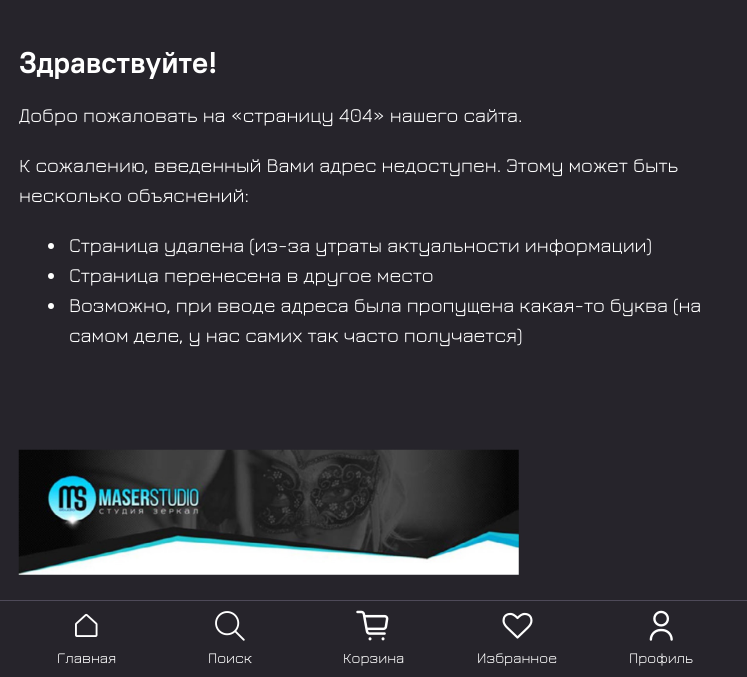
#include <cairo/cairo.h>
#include <math.h>
#include <stddef.h>

typedef struct { double x, y; const char *s; } line_t;
static cairo_t *cr;

static void rgb(unsigned color)
{
	cairo_set_source_rgb(cr, (color >> 16) / 255.0, (color >> 8 & 255) / 255.0, (color & 255) / 255.0);
}

static void image(const char *path, double x, double y, double w, double h)
{
	cairo_surface_t *image = cairo_image_surface_create_from_png(path);
	cairo_save(cr);
	cairo_set_source_surface(cr, image, x, y);
	cairo_rectangle(cr, x, y, w, h);
	cairo_fill(cr);
	cairo_restore(cr);
	cairo_surface_destroy(image);
}

int main(void) {
	cairo_surface_t *surface = cairo_image_surface_create(CAIRO_FORMAT_RGB24, 747, 677);
	cr = cairo_create(surface);
	cairo_font_options_t *options = cairo_font_options_create();
	cairo_font_options_set_hint_metrics(options, CAIRO_HINT_METRICS_OFF);
	cairo_font_options_set_hint_style(options, CAIRO_HINT_STYLE_NONE);
	cairo_set_font_options(cr, options);
	cairo_set_miter_limit(cr, 4);
	rgb(0x26242b);
	cairo_paint(cr);
	rgb(0xffffff);
	cairo_arc(cr, 51, 246, 3, 0, 2 * M_PI);
	cairo_fill(cr);
	cairo_arc(cr, 51, 276, 3, 0, 2 * M_PI);
	cairo_fill(cr);
	cairo_arc(cr, 51, 306, 3, 0, 2 * M_PI);
	cairo_fill(cr);
	image("img/1.png", 18, 449, 501, 126);
	rgb(0x4e4a59);
	cairo_rectangle(cr, 0, 600, 747, 1);
	cairo_fill(cr);
	image("img/2.png", 75, 613, 23, 24);
	image("img/3.png", 215, 611, 30, 30);
	image("img/4.png", 356, 610, 33, 31);
	image("img/5.png", 502, 612, 31, 27);
	image("img/6.png", 649, 610, 24, 31);
	cairo_select_font_face(cr, "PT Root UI", CAIRO_FONT_SLANT_NORMAL, CAIRO_FONT_WEIGHT_BOLD);
	cairo_set_font_size(cr, 30);
	rgb(0xffffff);
	cairo_move_to(cr, 19, 73);
	cairo_show_text(cr, "Здравствуйте!");
	cairo_select_font_face(cr, "Jura", CAIRO_FONT_SLANT_NORMAL, CAIRO_FONT_WEIGHT_NORMAL);
	cairo_set_font_size(cr, 20);
	{
		static const line_t items[] = {
			{19, 122, "Добро пожаловать на «страницу 404» нашего сайта."},
			{19, 172, "К сожалению, введенный Вами адрес недоступен. Этому может быть"},
			{19, 202, "несколько объяснений:"},
			{69, 252, "Страница удалена (из-за утраты актуальности информации)"},
			{69, 282, "Страница перенесена в другое место"},
			{69, 312, "Возможно, при вводе адреса была пропущена какая-то буква (на"},
			{69, 342, "самом деле, у нас самих так часто получается)"},
		};
		for (size_t i = 0; i < sizeof items / sizeof *items; i++) {
			cairo_move_to(cr, items[i].x, items[i].y);
			cairo_show_text(cr, items[i].s);
		}
	}
	cairo_set_font_size(cr, 15);
	{
		static const line_t items[] = {
			{57, 663, "Главная"},
			{208, 663, "Поиск"},
			{343, 663, "Корзина"},
			{477, 663, "Избранное"},
			{629, 663, "Профиль"},
		};
		for (size_t i = 0; i < sizeof items / sizeof *items; i++) {
			cairo_move_to(cr, items[i].x, items[i].y);
			cairo_show_text(cr, items[i].s);
		}
	}
	cairo_surface_write_to_png(surface, "page.png");
	cairo_font_options_destroy(options);
	cairo_destroy(cr);
	cairo_surface_destroy(surface);
	return 0;
}
